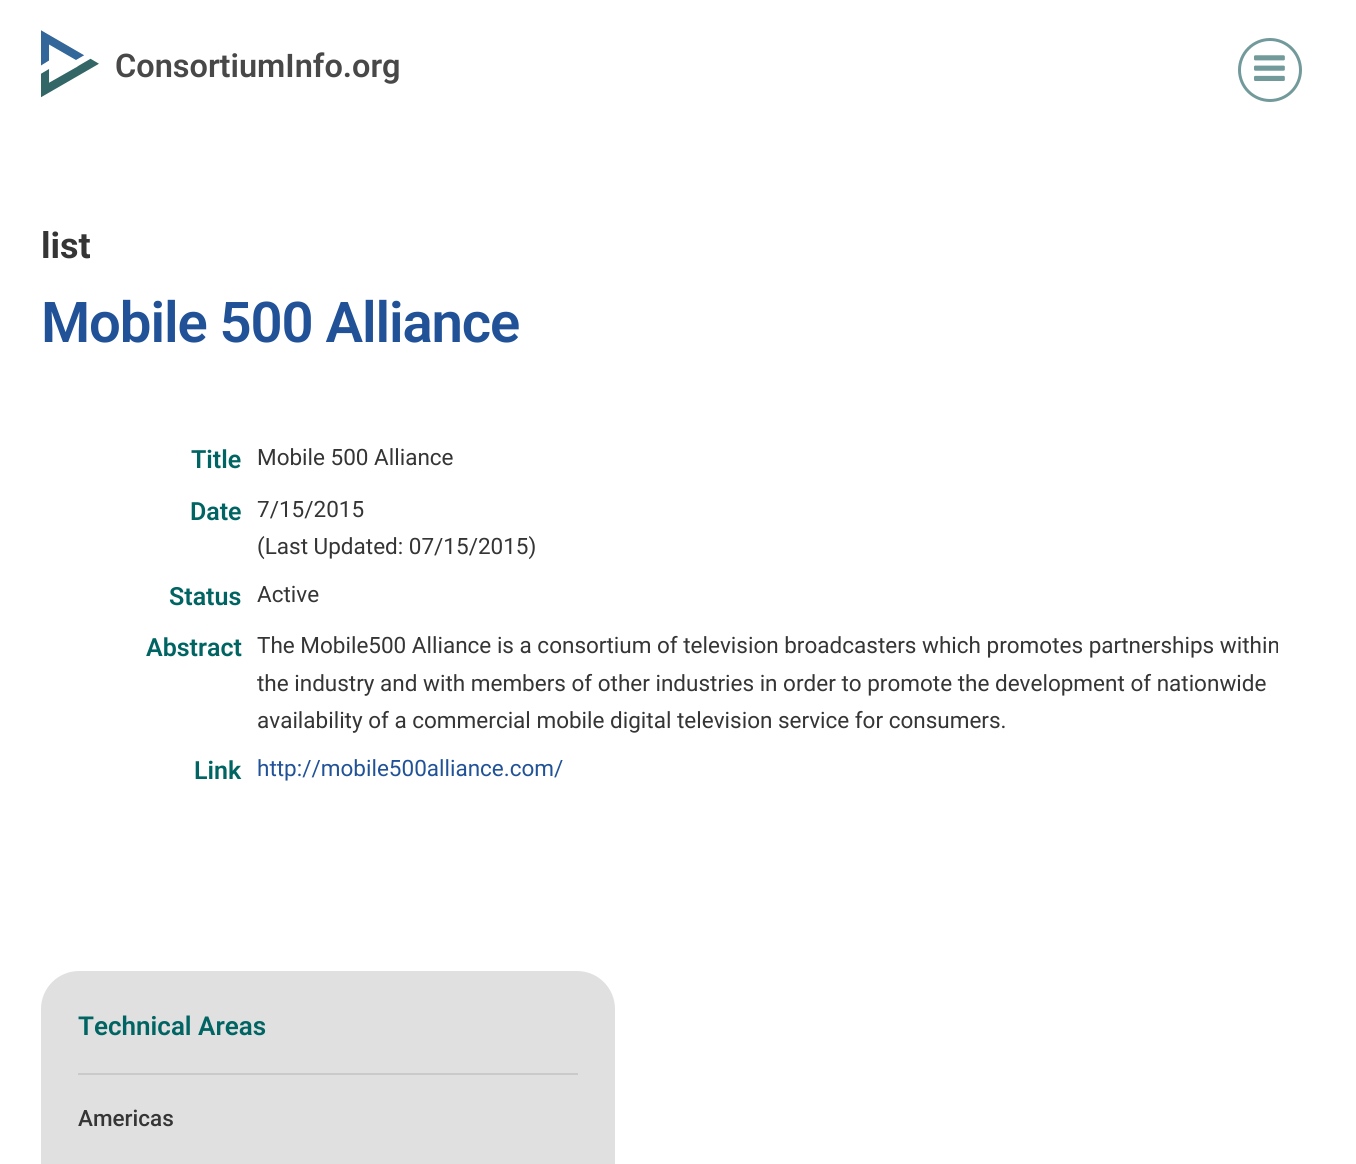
#include <cairo/cairo.h>
#include <math.h>
#include <stddef.h>

typedef struct { double x, y; const char *s; } line_t;
static cairo_t *cr;

static void rgb(unsigned color)
{
	cairo_set_source_rgb(cr, (color >> 16) / 255.0, (color >> 8 & 255) / 255.0, (color & 255) / 255.0);
}

static void tracked(double x, double y, const char *s, double letter, double word)
{
	cairo_move_to(cr, x, y);
	while (*s) {
		char ch[5] = {0};
		int n = 0;
		do ch[n++] = *s++; while ((*s & 0xC0) == 0x80);
		cairo_show_text(cr, ch);
		cairo_rel_move_to(cr, letter + word * (*ch == ' '), 0);
	}
}

static void rrect(double x, double y, double w, double h, double r)
{
	cairo_new_sub_path(cr);
	cairo_arc(cr, x + w - r, y + h - r, r, 0, M_PI / 2);
	cairo_arc(cr, x + r, y + h - r, r, M_PI / 2, M_PI);
	cairo_arc(cr, x + r, y + r, r, M_PI, 1.5 * M_PI);
	cairo_arc(cr, x + w - r, y + r, r, 1.5 * M_PI, 2 * M_PI);
	cairo_close_path(cr);
}

static void image(const char *path, double x, double y, double w, double h)
{
	cairo_surface_t *image = cairo_image_surface_create_from_png(path);
	cairo_save(cr);
	cairo_set_source_surface(cr, image, x, y);
	cairo_rectangle(cr, x, y, w, h);
	cairo_fill(cr);
	cairo_restore(cr);
	cairo_surface_destroy(image);
}

int main(void) {
	cairo_surface_t *surface = cairo_image_surface_create(CAIRO_FORMAT_RGB24, 1356, 1164);
	cr = cairo_create(surface);
	cairo_font_options_t *options = cairo_font_options_create();
	cairo_font_options_set_hint_metrics(options, CAIRO_HINT_METRICS_OFF);
	cairo_font_options_set_hint_style(options, CAIRO_HINT_STYLE_NONE);
	cairo_set_font_options(cr, options);
	cairo_set_miter_limit(cr, 4);
	rgb(0xffffff);
	cairo_paint(cr);
	image("img/1.png", 41, 30, 58, 68);
	cairo_arc(cr, 1270, 70, 30.5, 0, 2 * M_PI);
	rgb(0x739a9b);
	cairo_set_line_width(cr, 3);
	cairo_stroke(cr);
	image("img/2.png", 1254, 55, 31, 26);
	rgb(0xe0e0e0);
	rrect(41, 971, 574, 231, 38);
	cairo_fill(cr);
	rgb(0xcacaca);
	cairo_rectangle(cr, 78, 1073, 500, 2);
	cairo_fill(cr);
	cairo_select_font_face(cr, "Roboto SemiBold", CAIRO_FONT_SLANT_NORMAL, CAIRO_FONT_WEIGHT_NORMAL);
	cairo_set_font_size(cr, 32.5);
	rgb(0x484848);
	cairo_move_to(cr, 115, 77);
	cairo_show_text(cr, "ConsortiumInfo.org");
	cairo_select_font_face(cr, "Roboto", CAIRO_FONT_SLANT_NORMAL, CAIRO_FONT_WEIGHT_BOLD);
	cairo_set_font_size(cr, 36);
	rgb(0x343534);
	cairo_move_to(cr, 41, 258);
	cairo_show_text(cr, "list");
	cairo_select_font_face(cr, "Roboto SemiBold", CAIRO_FONT_SLANT_NORMAL, CAIRO_FONT_WEIGHT_NORMAL);
	cairo_set_font_size(cr, 56.25);
	rgb(0x215298);
	tracked(41, 342, "Mobile 500 Alliance", -1.1, 0);
	cairo_set_font_size(cr, 25);
	rgb(0x006463);
	cairo_move_to(cr, 191, 468);
	cairo_show_text(cr, "Title");
	cairo_select_font_face(cr, "Roboto", CAIRO_FONT_SLANT_NORMAL, CAIRO_FONT_WEIGHT_NORMAL);
	cairo_set_font_size(cr, 22.5);
	rgb(0x343534);
	cairo_move_to(cr, 257, 465);
	cairo_show_text(cr, "Mobile 500 Alliance");
	cairo_select_font_face(cr, "Roboto SemiBold", CAIRO_FONT_SLANT_NORMAL, CAIRO_FONT_WEIGHT_NORMAL);
	cairo_set_font_size(cr, 25);
	rgb(0x006463);
	cairo_move_to(cr, 190, 520);
	cairo_show_text(cr, "Date");
	cairo_select_font_face(cr, "Roboto", CAIRO_FONT_SLANT_NORMAL, CAIRO_FONT_WEIGHT_NORMAL);
	cairo_set_font_size(cr, 22.5);
	rgb(0x343534);
	cairo_move_to(cr, 257, 517);
	cairo_show_text(cr, "7/15/2015");
	cairo_move_to(cr, 257, 554);
	cairo_show_text(cr, "(Last Updated: 07/15/2015)");
	cairo_select_font_face(cr, "Roboto SemiBold", CAIRO_FONT_SLANT_NORMAL, CAIRO_FONT_WEIGHT_NORMAL);
	cairo_set_font_size(cr, 25);
	rgb(0x006463);
	cairo_move_to(cr, 169, 605);
	cairo_show_text(cr, "Status");
	cairo_select_font_face(cr, "Roboto", CAIRO_FONT_SLANT_NORMAL, CAIRO_FONT_WEIGHT_NORMAL);
	cairo_set_font_size(cr, 22.5);
	rgb(0x343534);
	cairo_move_to(cr, 257, 602);
	cairo_show_text(cr, "Active");
	cairo_select_font_face(cr, "Roboto SemiBold", CAIRO_FONT_SLANT_NORMAL, CAIRO_FONT_WEIGHT_NORMAL);
	cairo_set_font_size(cr, 25);
	rgb(0x006463);
	cairo_move_to(cr, 146, 656);
	cairo_show_text(cr, "Abstract");
	cairo_select_font_face(cr, "Roboto", CAIRO_FONT_SLANT_NORMAL, CAIRO_FONT_WEIGHT_NORMAL);
	cairo_set_font_size(cr, 22.5);
	rgb(0x343534);
	{
		static const line_t items[] = {
			{257, 653, "The Mobile500 Alliance is a consortium of television broadcasters which promotes partnerships within"},
			{257, 691, "the industry and with members of other industries in order to promote the development of nationwide"},
			{257, 728, "availability of a commercial mobile digital television service for consumers."},
		};
		for (size_t i = 0; i < sizeof items / sizeof *items; i++) {
			cairo_move_to(cr, items[i].x, items[i].y);
			cairo_show_text(cr, items[i].s);
		}
	}
	cairo_select_font_face(cr, "Roboto SemiBold", CAIRO_FONT_SLANT_NORMAL, CAIRO_FONT_WEIGHT_NORMAL);
	cairo_set_font_size(cr, 25);
	rgb(0x006463);
	cairo_move_to(cr, 194, 779);
	cairo_show_text(cr, "Link");
	cairo_select_font_face(cr, "Roboto", CAIRO_FONT_SLANT_NORMAL, CAIRO_FONT_WEIGHT_NORMAL);
	cairo_set_font_size(cr, 22.5);
	rgb(0x215298);
	cairo_move_to(cr, 257, 776);
	cairo_show_text(cr, "http://mobile500alliance.com/");
	cairo_select_font_face(cr, "Roboto SemiBold", CAIRO_FONT_SLANT_NORMAL, CAIRO_FONT_WEIGHT_NORMAL);
	cairo_set_font_size(cr, 26);
	rgb(0x006463);
	cairo_move_to(cr, 78, 1035);
	cairo_show_text(cr, "Technical Areas");
	cairo_select_font_face(cr, "Roboto Medium", CAIRO_FONT_SLANT_NORMAL, CAIRO_FONT_WEIGHT_NORMAL);
	cairo_set_font_size(cr, 22.5);
	rgb(0x343534);
	cairo_move_to(cr, 78, 1126);
	cairo_show_text(cr, "Americas");
	cairo_surface_write_to_png(surface, "page.png");
	cairo_font_options_destroy(options);
	cairo_destroy(cr);
	cairo_surface_destroy(surface);
	return 0;
}
